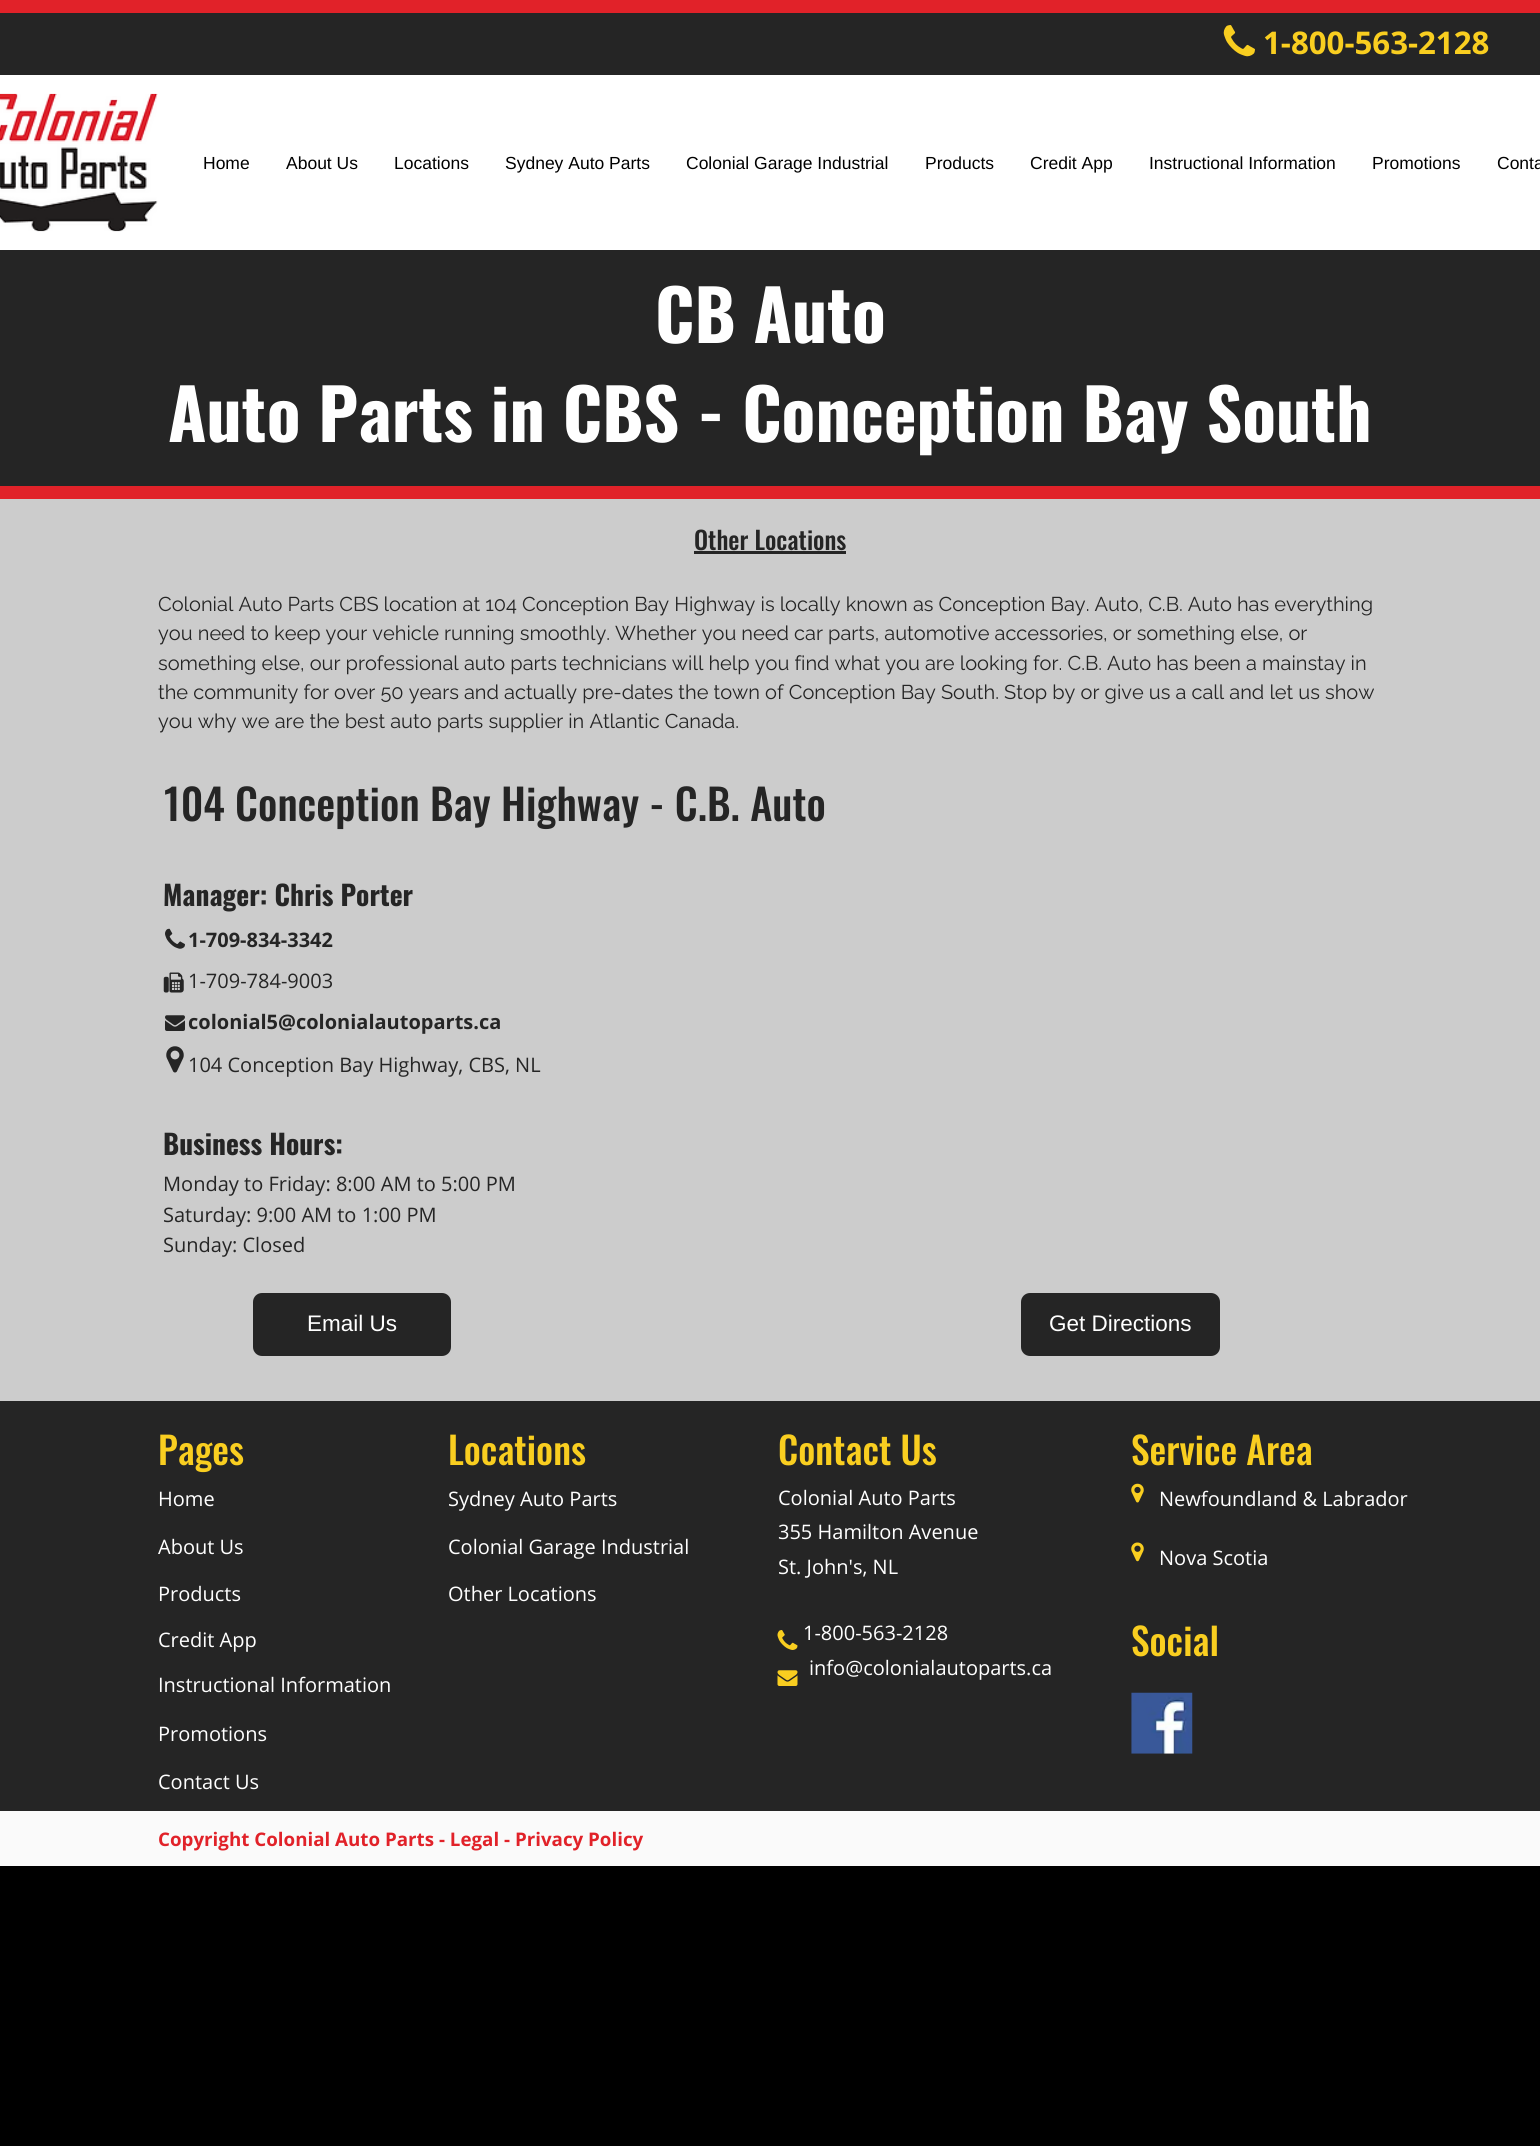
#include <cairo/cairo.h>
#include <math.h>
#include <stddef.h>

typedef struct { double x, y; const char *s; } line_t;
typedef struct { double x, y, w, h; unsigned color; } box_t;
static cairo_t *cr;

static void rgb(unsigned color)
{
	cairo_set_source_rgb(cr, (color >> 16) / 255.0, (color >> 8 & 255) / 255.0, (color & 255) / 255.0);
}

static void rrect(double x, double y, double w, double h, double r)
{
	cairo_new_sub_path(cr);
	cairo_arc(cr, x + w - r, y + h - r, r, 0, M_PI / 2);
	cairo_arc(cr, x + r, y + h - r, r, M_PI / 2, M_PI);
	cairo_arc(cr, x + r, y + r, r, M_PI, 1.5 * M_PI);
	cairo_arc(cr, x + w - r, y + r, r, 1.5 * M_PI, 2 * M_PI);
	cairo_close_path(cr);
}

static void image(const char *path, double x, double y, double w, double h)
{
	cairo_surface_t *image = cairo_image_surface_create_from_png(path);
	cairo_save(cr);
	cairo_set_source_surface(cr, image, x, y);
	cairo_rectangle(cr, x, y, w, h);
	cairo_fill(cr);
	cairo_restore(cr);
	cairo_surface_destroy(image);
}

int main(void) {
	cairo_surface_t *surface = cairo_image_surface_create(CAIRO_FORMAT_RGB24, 1540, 2146);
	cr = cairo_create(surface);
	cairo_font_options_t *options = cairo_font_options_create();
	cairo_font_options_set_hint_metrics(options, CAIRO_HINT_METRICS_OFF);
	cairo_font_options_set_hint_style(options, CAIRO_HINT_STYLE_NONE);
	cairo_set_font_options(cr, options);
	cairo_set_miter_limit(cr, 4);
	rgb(0x000000);
	cairo_paint(cr);
	rgb(0x252525);
	cairo_rectangle(cr, 0, 13, 1540, 62);
	cairo_fill(cr);
	rgb(0xe12229);
	cairo_rectangle(cr, 0, 0, 1540, 13);
	cairo_fill(cr);
	image("img/1.png", 1223, 25, 32, 32);
	rgb(0xffffff);
	cairo_rectangle(cr, 0, 75, 1540, 175);
	cairo_fill(cr);
	image("img/2.png", 0, 93, 158, 139);
	{
		static const box_t items[] = {
			{0, 250, 1540, 236, 0x252525},
			{0, 486, 1540, 13, 0xe12229},
			{0, 499, 1540, 902, 0xcccccc},
			{694, 551, 152, 3, 0x252525},
		};
		for (size_t i = 0; i < sizeof items / sizeof *items; i++) {
			rgb(items[i].color);
			cairo_rectangle(cr, items[i].x, items[i].y, items[i].w, items[i].h);
			cairo_fill(cr);
		}
	}
	image("img/3.png", 165, 928, 20, 21);
	image("img/4.png", 163, 972, 21, 21);
	image("img/5.png", 165, 1015, 20, 16);
	image("img/6.png", 166, 1046, 18, 27);
	rrect(253, 1293, 198, 63, 9);
	cairo_fill(cr);
	rrect(1021, 1293, 199, 63, 9);
	cairo_fill(cr);
	cairo_rectangle(cr, 0, 1401, 1540, 410);
	cairo_fill(cr);
	image("img/7.png", 1131, 1483, 13, 20);
	image("img/8.png", 1131, 1542, 13, 20);
	image("img/9.png", 777, 1630, 21, 20);
	image("img/10.png", 777, 1670, 21, 16);
	image("img/11.png", 1131, 1692, 62, 62);
	rgb(0xfafafa);
	cairo_rectangle(cr, 0, 1811, 1540, 55);
	cairo_fill(cr);
	cairo_select_font_face(cr, "Open Sans", CAIRO_FONT_SLANT_NORMAL, CAIRO_FONT_WEIGHT_BOLD);
	cairo_set_font_size(cr, 31.25);
	rgb(0xf9ce20);
	cairo_move_to(cr, 1263, 54);
	cairo_show_text(cr, "1-800-563-2128");
	cairo_select_font_face(cr, "Liberation Sans", CAIRO_FONT_SLANT_NORMAL, CAIRO_FONT_WEIGHT_NORMAL);
	cairo_set_font_size(cr, 17.5);
	rgb(0x000000);
	{
		static const line_t items[] = {
			{203, 169, "Home"},
			{286, 169, "About Us"},
			{394, 169, "Locations"},
			{505, 169, "Sydney Auto Parts"},
			{686, 169, "Colonial Garage Industrial"},
			{925, 169, "Products"},
			{1030, 169, "Credit App"},
			{1149, 169, "Instructional Information"},
			{1372, 169, "Promotions"},
			{1497, 169, "Conta"},
		};
		for (size_t i = 0; i < sizeof items / sizeof *items; i++) {
			cairo_move_to(cr, items[i].x, items[i].y);
			cairo_show_text(cr, items[i].s);
		}
	}
	cairo_select_font_face(cr, "Oswald", CAIRO_FONT_SLANT_NORMAL, CAIRO_FONT_WEIGHT_BOLD);
	cairo_set_font_size(cr, 70);
	rgb(0xffffff);
	cairo_move_to(cr, 655, 343);
	cairo_show_text(cr, "CB Auto");
	cairo_move_to(cr, 168, 442);
	cairo_show_text(cr, "Auto Parts in CBS - Conception Bay South");
	cairo_select_font_face(cr, "Oswald Medium", CAIRO_FONT_SLANT_NORMAL, CAIRO_FONT_WEIGHT_NORMAL);
	cairo_set_font_size(cr, 25);
	rgb(0x252525);
	cairo_move_to(cr, 694, 550);
	cairo_show_text(cr, "Other Locations");
	cairo_select_font_face(cr, "Raleway", CAIRO_FONT_SLANT_NORMAL, CAIRO_FONT_WEIGHT_NORMAL);
	cairo_set_font_size(cr, 20);
	{
		static const line_t items[] = {
			{158, 611, "Colonial Auto Parts CBS location at 104 Conception Bay Highway is locally known as Conception Bay. Auto, C.B. Auto has everything"},
			{158, 640, "you need to keep your vehicle running smoothly. Whether you need car parts, automotive accessories, or something else, or"},
			{158, 670, "something else, our professional auto parts technicians will help you find what you are looking for. C.B. Auto has been a mainstay in"},
			{158, 699, "the community for over 50 years and actually pre-dates the town of Conception Bay South. Stop by or give us a call and let us show"},
			{158, 728, "you why we are the best auto parts supplier in Atlantic Canada."},
		};
		for (size_t i = 0; i < sizeof items / sizeof *items; i++) {
			cairo_move_to(cr, items[i].x, items[i].y);
			cairo_show_text(cr, items[i].s);
		}
	}
	cairo_select_font_face(cr, "Oswald Medium", CAIRO_FONT_SLANT_NORMAL, CAIRO_FONT_WEIGHT_NORMAL);
	cairo_set_font_size(cr, 42.5);
	cairo_move_to(cr, 164, 821);
	cairo_show_text(cr, "104 Conception Bay Highway - C.B. Auto");
	cairo_select_font_face(cr, "Oswald", CAIRO_FONT_SLANT_NORMAL, CAIRO_FONT_WEIGHT_BOLD);
	cairo_set_font_size(cr, 27.5);
	cairo_move_to(cr, 163, 906);
	cairo_show_text(cr, "Manager: Chris Porter");
	cairo_select_font_face(cr, "Open Sans", CAIRO_FONT_SLANT_NORMAL, CAIRO_FONT_WEIGHT_BOLD);
	cairo_set_font_size(cr, 20);
	cairo_move_to(cr, 188, 947);
	cairo_show_text(cr, "1-709-834-3342");
	cairo_select_font_face(cr, "Open Sans", CAIRO_FONT_SLANT_NORMAL, CAIRO_FONT_WEIGHT_NORMAL);
	cairo_move_to(cr, 188, 988);
	cairo_show_text(cr, "1-709-784-9003");
	cairo_select_font_face(cr, "Open Sans", CAIRO_FONT_SLANT_NORMAL, CAIRO_FONT_WEIGHT_BOLD);
	cairo_move_to(cr, 188, 1029);
	cairo_show_text(cr, "colonial5@colonialautoparts.ca");
	cairo_select_font_face(cr, "Open Sans", CAIRO_FONT_SLANT_NORMAL, CAIRO_FONT_WEIGHT_NORMAL);
	cairo_move_to(cr, 188, 1072);
	cairo_show_text(cr, "104 Conception Bay Highway, CBS, NL");
	cairo_select_font_face(cr, "Oswald", CAIRO_FONT_SLANT_NORMAL, CAIRO_FONT_WEIGHT_BOLD);
	cairo_set_font_size(cr, 27.5);
	cairo_move_to(cr, 163, 1155);
	cairo_show_text(cr, "Business Hours:");
	cairo_select_font_face(cr, "Open Sans", CAIRO_FONT_SLANT_NORMAL, CAIRO_FONT_WEIGHT_NORMAL);
	cairo_set_font_size(cr, 20);
	{
		static const line_t items[] = {
			{163, 1191, "Monday to Friday: 8:00 AM to 5:00 PM"},
			{163, 1222, "Saturday: 9:00 AM to 1:00 PM"},
			{163, 1252, "Sunday: Closed"},
		};
		for (size_t i = 0; i < sizeof items / sizeof *items; i++) {
			cairo_move_to(cr, items[i].x, items[i].y);
			cairo_show_text(cr, items[i].s);
		}
	}
	cairo_select_font_face(cr, "Liberation Sans", CAIRO_FONT_SLANT_NORMAL, CAIRO_FONT_WEIGHT_NORMAL);
	cairo_set_font_size(cr, 22.5);
	rgb(0xffffff);
	cairo_move_to(cr, 307, 1331);
	cairo_show_text(cr, "Email Us");
	cairo_move_to(cr, 1049, 1331);
	cairo_show_text(cr, "Get Directions");
	cairo_select_font_face(cr, "Oswald Medium", CAIRO_FONT_SLANT_NORMAL, CAIRO_FONT_WEIGHT_NORMAL);
	cairo_set_font_size(cr, 37.5);
	rgb(0xf9ce20);
	{
		static const line_t items[] = {
			{158, 1465, "Pages"},
			{448, 1465, "Locations"},
			{778, 1465, "Contact Us"},
			{1131, 1465, "Service Area"},
		};
		for (size_t i = 0; i < sizeof items / sizeof *items; i++) {
			cairo_move_to(cr, items[i].x, items[i].y);
			cairo_show_text(cr, items[i].s);
		}
	}
	cairo_select_font_face(cr, "Open Sans", CAIRO_FONT_SLANT_NORMAL, CAIRO_FONT_WEIGHT_NORMAL);
	cairo_set_font_size(cr, 20);
	rgb(0xffffff);
	{
		static const line_t items[] = {
			{158, 1506, "Home"},
			{448, 1506, "Sydney Auto Parts"},
			{778, 1505, "Colonial Auto Parts"},
			{778, 1539, "355 Hamilton Avenue"},
			{778, 1574, "St. John's, NL"},
			{803, 1640, "1-800-563-2128"},
			{809, 1675, "info@colonialautoparts.ca"},
			{1159, 1506, "Newfoundland & Labrador"},
			{158, 1554, "About Us"},
			{448, 1554, "Colonial Garage Industrial"},
			{1159, 1565, "Nova Scotia"},
			{158, 1601, "Products"},
			{448, 1601, "Other Locations"},
			{158, 1647, "Credit App"},
		};
		for (size_t i = 0; i < sizeof items / sizeof *items; i++) {
			cairo_move_to(cr, items[i].x, items[i].y);
			cairo_show_text(cr, items[i].s);
		}
	}
	cairo_select_font_face(cr, "Oswald Medium", CAIRO_FONT_SLANT_NORMAL, CAIRO_FONT_WEIGHT_NORMAL);
	cairo_set_font_size(cr, 37.5);
	rgb(0xf9ce20);
	cairo_move_to(cr, 1131, 1656);
	cairo_show_text(cr, "Social");
	cairo_select_font_face(cr, "Open Sans", CAIRO_FONT_SLANT_NORMAL, CAIRO_FONT_WEIGHT_NORMAL);
	cairo_set_font_size(cr, 20);
	rgb(0xffffff);
	{
		static const line_t items[] = {
			{158, 1692, "Instructional Information"},
			{158, 1741, "Promotions"},
			{158, 1789, "Contact Us"},
		};
		for (size_t i = 0; i < sizeof items / sizeof *items; i++) {
			cairo_move_to(cr, items[i].x, items[i].y);
			cairo_show_text(cr, items[i].s);
		}
	}
	cairo_select_font_face(cr, "Open Sans", CAIRO_FONT_SLANT_NORMAL, CAIRO_FONT_WEIGHT_BOLD);
	cairo_set_font_size(cr, 18.75);
	rgb(0xe12229);
	cairo_move_to(cr, 158, 1846);
	cairo_show_text(cr, "Copyright Colonial Auto Parts - Legal - Privacy Policy");
	cairo_surface_write_to_png(surface, "page.png");
	cairo_font_options_destroy(options);
	cairo_destroy(cr);
	cairo_surface_destroy(surface);
	return 0;
}
